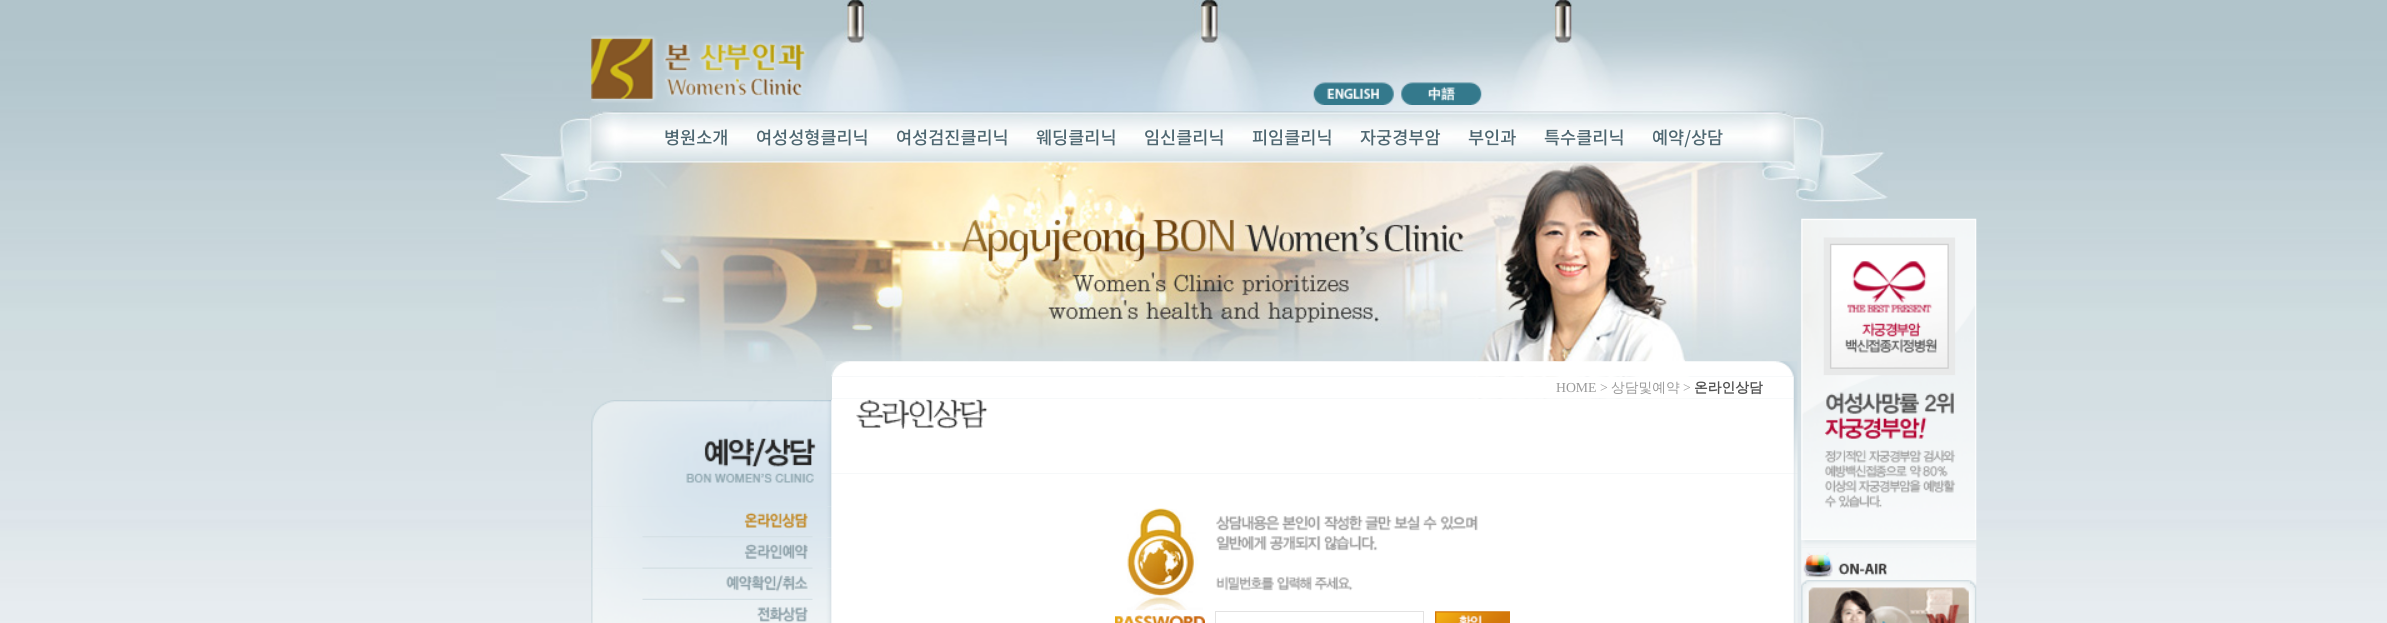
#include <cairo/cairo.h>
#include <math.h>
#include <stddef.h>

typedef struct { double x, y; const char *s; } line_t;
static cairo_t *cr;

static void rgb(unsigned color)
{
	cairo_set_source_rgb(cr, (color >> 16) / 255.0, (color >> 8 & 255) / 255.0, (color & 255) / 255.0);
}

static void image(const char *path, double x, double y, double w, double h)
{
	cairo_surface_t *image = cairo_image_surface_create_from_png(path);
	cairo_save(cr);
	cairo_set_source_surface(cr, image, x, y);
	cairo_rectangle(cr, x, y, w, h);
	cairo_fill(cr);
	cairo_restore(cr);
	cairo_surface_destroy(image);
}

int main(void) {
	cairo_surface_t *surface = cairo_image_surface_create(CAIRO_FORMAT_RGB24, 2387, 623);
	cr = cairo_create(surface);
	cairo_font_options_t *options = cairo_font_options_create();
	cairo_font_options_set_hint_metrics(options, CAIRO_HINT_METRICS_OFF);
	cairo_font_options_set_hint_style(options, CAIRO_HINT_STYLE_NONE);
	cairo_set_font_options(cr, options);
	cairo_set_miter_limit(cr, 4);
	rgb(0xffffff);
	cairo_paint(cr);
	image("img/1.png", 0, 0, 2387, 623);
	image("img/2.png", 496, 0, 1392, 414);
	image("img/3.png", 1313, 82, 81, 23);
	image("img/4.png", 1401, 82, 81, 23);
	image("img/5.png", 1801, 218, 176, 330);
	image("img/6.png", 1801, 547, 176, 33);
	image("img/7.png", 1801, 580, 176, 43);
	image("img/8.png", 591, 35, 216, 68);
	image("img/9.png", 827, 400, 5, 223);
	image("img/16.png", 832, 376, 966, 23);
	image("img/17.png", 831, 398, 967, 76);
	rgb(0xd2dde1);
	cairo_rectangle(cr, 826, 361, 6, 39);
	cairo_fill(cr);
	image("img/19.png", 831, 474, 967, 149);
	image("img/10.png", 591, 400, 241, 107);
	image("img/11.png", 591, 506, 241, 32);
	image("img/12.png", 591, 537, 241, 32);
	image("img/13.png", 591, 569, 241, 31);
	image("img/14.png", 591, 600, 241, 23);
	image("img/15.png", 831, 361, 967, 16);
	image("img/18.png", 856, 399, 132, 30);
	image("img/20.png", 1127, 508, 351, 102);
	image("img/21.png", 1115, 615, 90, 8);
	cairo_rectangle(cr, 1215.5, 611.5, 208, 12);
	rgb(0xe3e2e2);
	cairo_set_line_width(cr, 1);
	cairo_stroke(cr);
	image("img/22.png", 1435, 611, 75, 12);
	cairo_select_font_face(cr, "Noto Sans KR Medium", CAIRO_FONT_SLANT_NORMAL, CAIRO_FONT_WEIGHT_NORMAL);
	cairo_set_font_size(cr, 17.5);
	rgb(0x4e6771);
	{
		static const line_t items[] = {
			{664, 144, "병원소개"},
			{756, 144, "여성성형클리닉"},
			{896, 144, "여성검진클리닉"},
			{1036, 144, "웨딩클리닉"},
			{1144, 144, "임신클리닉"},
			{1252, 144, "피임클리닉"},
			{1360, 144, "자궁경부암"},
			{1468, 144, "부인과"},
			{1544, 144, "특수클리닉"},
			{1652, 144, "예약/상담"},
		};
		for (size_t i = 0; i < sizeof items / sizeof *items; i++) {
			cairo_move_to(cr, items[i].x, items[i].y);
			cairo_show_text(cr, items[i].s);
		}
	}
	cairo_select_font_face(cr, "Liberation Serif", CAIRO_FONT_SLANT_NORMAL, CAIRO_FONT_WEIGHT_NORMAL);
	cairo_set_font_size(cr, 13.75);
	rgb(0x999999);
	cairo_move_to(cr, 1556, 392);
	cairo_show_text(cr, "HOME >");
	cairo_select_font_face(cr, "WenQuanYi Zen Hei Medium", CAIRO_FONT_SLANT_NORMAL, CAIRO_FONT_WEIGHT_NORMAL);
	cairo_move_to(cr, 1611, 392);
	cairo_show_text(cr, "상담및예약");
	cairo_select_font_face(cr, "Liberation Serif", CAIRO_FONT_SLANT_NORMAL, CAIRO_FONT_WEIGHT_NORMAL);
	cairo_move_to(cr, 1683, 392);
	cairo_show_text(cr, ">");
	cairo_select_font_face(cr, "WenQuanYi Zen Hei", CAIRO_FONT_SLANT_NORMAL, CAIRO_FONT_WEIGHT_BOLD);
	rgb(0x525252);
	cairo_move_to(cr, 1694, 392);
	cairo_show_text(cr, "온라인상담");
	cairo_surface_write_to_png(surface, "page.png");
	cairo_font_options_destroy(options);
	cairo_destroy(cr);
	cairo_surface_destroy(surface);
	return 0;
}
